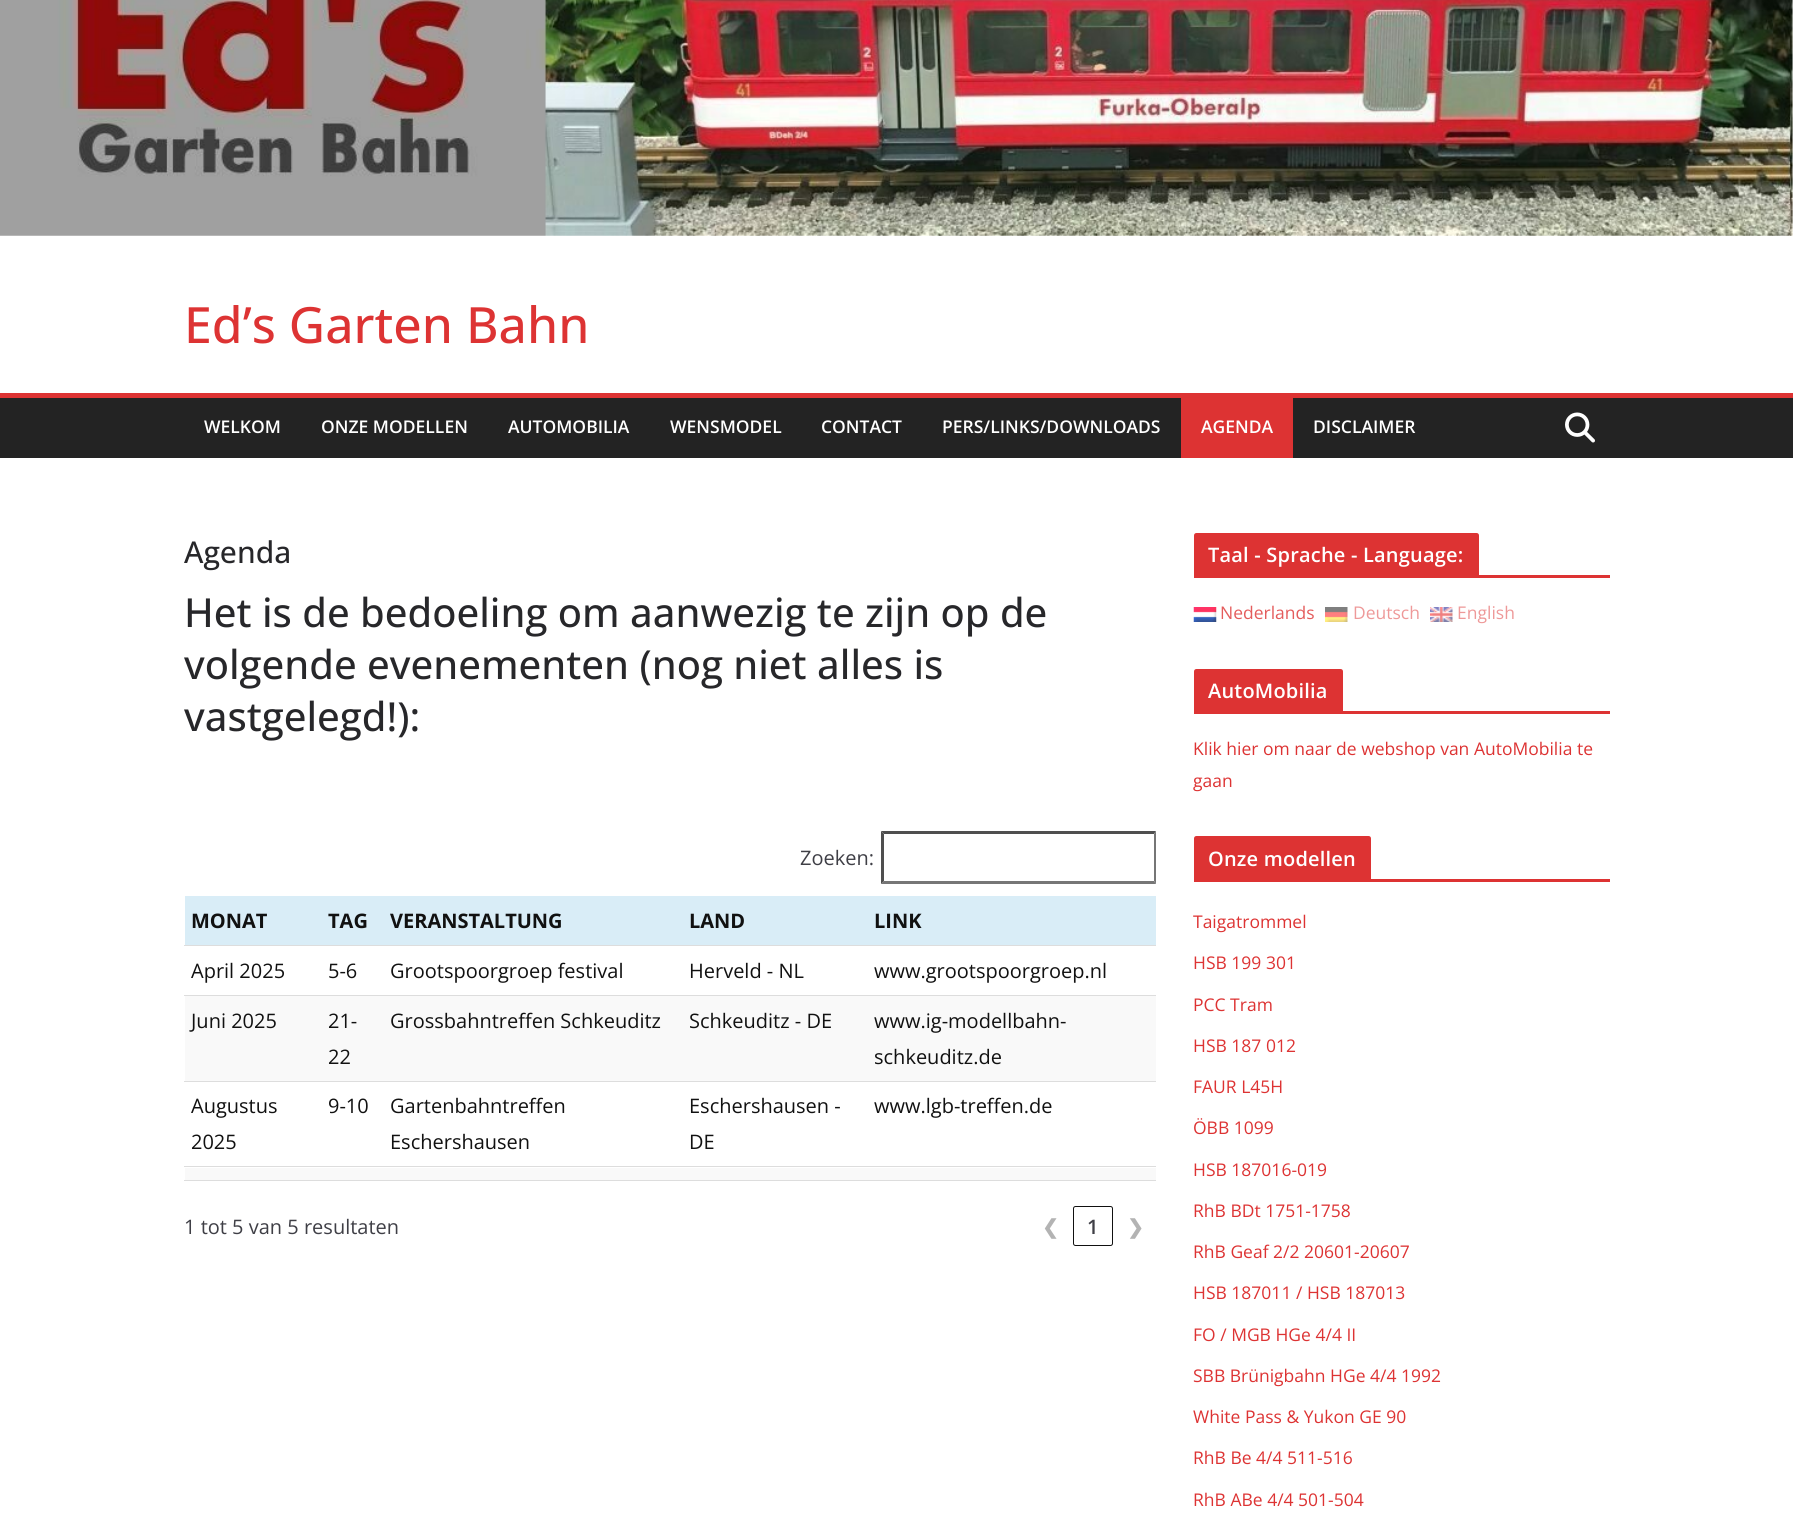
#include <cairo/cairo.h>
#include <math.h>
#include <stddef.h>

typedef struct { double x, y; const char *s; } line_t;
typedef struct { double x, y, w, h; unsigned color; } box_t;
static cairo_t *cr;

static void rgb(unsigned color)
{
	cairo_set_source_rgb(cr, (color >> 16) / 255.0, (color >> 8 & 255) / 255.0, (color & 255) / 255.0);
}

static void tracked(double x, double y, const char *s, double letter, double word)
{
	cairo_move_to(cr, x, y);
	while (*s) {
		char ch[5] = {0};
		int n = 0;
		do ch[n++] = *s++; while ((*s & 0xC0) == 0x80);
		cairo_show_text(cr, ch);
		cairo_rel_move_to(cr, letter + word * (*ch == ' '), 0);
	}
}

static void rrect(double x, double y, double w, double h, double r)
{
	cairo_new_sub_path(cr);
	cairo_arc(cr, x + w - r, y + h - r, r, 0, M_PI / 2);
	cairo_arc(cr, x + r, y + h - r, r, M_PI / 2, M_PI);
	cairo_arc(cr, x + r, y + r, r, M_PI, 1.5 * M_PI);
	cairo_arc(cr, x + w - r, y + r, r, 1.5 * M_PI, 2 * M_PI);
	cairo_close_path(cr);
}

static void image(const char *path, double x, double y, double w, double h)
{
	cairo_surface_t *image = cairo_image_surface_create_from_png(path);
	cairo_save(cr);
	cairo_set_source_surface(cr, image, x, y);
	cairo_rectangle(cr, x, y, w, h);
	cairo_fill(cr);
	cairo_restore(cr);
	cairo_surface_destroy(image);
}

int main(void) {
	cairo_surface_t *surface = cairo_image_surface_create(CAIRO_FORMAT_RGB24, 1793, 1540);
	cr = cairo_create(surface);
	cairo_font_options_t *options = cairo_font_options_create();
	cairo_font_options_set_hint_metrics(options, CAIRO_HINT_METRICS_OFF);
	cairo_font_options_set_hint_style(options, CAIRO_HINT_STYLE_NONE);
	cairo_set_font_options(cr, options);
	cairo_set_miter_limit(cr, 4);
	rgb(0xffffff);
	cairo_paint(cr);
	image("img/1.png", 0, 0, 1793, 236);
	{
		static const box_t items[] = {
			{0, 398, 1793, 60, 0x232323},
			{0, 393, 1793, 5, 0xdd3333},
			{1181, 398, 112, 60, 0xdd3333},
		};
		for (size_t i = 0; i < sizeof items / sizeof *items; i++) {
			rgb(items[i].color);
			cairo_rectangle(cr, items[i].x, items[i].y, items[i].w, items[i].h);
			cairo_fill(cr);
		}
	}
	image("img/2.png", 1565, 412, 30, 31);
	rgb(0x4f4f4f);
	cairo_new_path(cr);
	cairo_move_to(cr, 881, 831);
	cairo_line_to(cr, 1156, 831);
	cairo_line_to(cr, 1154, 834);
	cairo_line_to(cr, 884, 834);
	cairo_close_path(cr);
	cairo_fill(cr);
	rgb(0x767676);
	cairo_new_path(cr);
	cairo_move_to(cr, 1156, 831);
	cairo_line_to(cr, 1156, 884);
	cairo_line_to(cr, 1154, 881);
	cairo_line_to(cr, 1154, 834);
	cairo_close_path(cr);
	cairo_fill(cr);
	cairo_new_path(cr);
	cairo_move_to(cr, 1156, 884);
	cairo_line_to(cr, 881, 884);
	cairo_line_to(cr, 884, 881);
	cairo_line_to(cr, 1154, 881);
	cairo_close_path(cr);
	cairo_fill(cr);
	rgb(0x4f4f4f);
	cairo_new_path(cr);
	cairo_move_to(cr, 881, 884);
	cairo_line_to(cr, 881, 831);
	cairo_line_to(cr, 884, 834);
	cairo_line_to(cr, 884, 881);
	cairo_close_path(cr);
	cairo_fill(cr);
	{
		static const box_t items[] = {
			{185, 896, 971, 49, 0xd9edf7},
			{184, 945, 972, 1, 0xdddddd},
			{185, 996, 971, 85, 0xf9f9f9},
			{184, 995, 972, 1, 0xdddddd},
			{184, 1081, 972, 1, 0xdddddd},
			{184, 1166, 972, 1, 0xdddddd},
			{185, 1168, 971, 12, 0xf9f9f9},
			{184, 1180, 972, 1, 0xdddddd},
		};
		for (size_t i = 0; i < sizeof items / sizeof *items; i++) {
			rgb(items[i].color);
			cairo_rectangle(cr, items[i].x, items[i].y, items[i].w, items[i].h);
			cairo_fill(cr);
		}
	}
	rrect(1073.5, 1206.5, 39, 39, 2);
	rgb(0x111111);
	cairo_set_line_width(cr, 1);
	cairo_stroke(cr);
	rgb(0xdd3333);
	cairo_rectangle(cr, 1194, 575, 416, 3);
	cairo_fill(cr);
	cairo_new_path(cr);
	cairo_move_to(cr, 1196.5, 533);
	cairo_line_to(cr, 1476.5, 533);
	cairo_curve_to(cr, 1478, 533, 1479, 534, 1479, 535.5);
	cairo_line_to(cr, 1479, 575);
	cairo_line_to(cr, 1194, 575);
	cairo_line_to(cr, 1194, 535.5);
	cairo_curve_to(cr, 1194, 534, 1195, 533, 1196.5, 533);
	cairo_close_path(cr);
	cairo_fill(cr);
	image("img/3.png", 1193, 607, 24, 15);
	image("img/4.png", 1325, 607, 23, 15);
	image("img/5.png", 1430, 607, 23, 15);
	cairo_rectangle(cr, 1194, 711, 416, 3);
	cairo_fill(cr);
	cairo_new_path(cr);
	cairo_move_to(cr, 1196.5, 669);
	cairo_line_to(cr, 1340.5, 669);
	cairo_curve_to(cr, 1342, 669, 1343, 670, 1343, 671.5);
	cairo_line_to(cr, 1343, 711);
	cairo_line_to(cr, 1194, 711);
	cairo_line_to(cr, 1194, 671.5);
	cairo_curve_to(cr, 1194, 670, 1195, 669, 1196.5, 669);
	cairo_close_path(cr);
	cairo_fill(cr);
	cairo_rectangle(cr, 1194, 879, 416, 3);
	cairo_fill(cr);
	cairo_new_path(cr);
	cairo_move_to(cr, 1196.5, 836);
	cairo_line_to(cr, 1368.5, 836);
	cairo_curve_to(cr, 1370, 836, 1371, 837, 1371, 838.5);
	cairo_line_to(cr, 1371, 879);
	cairo_line_to(cr, 1194, 879);
	cairo_line_to(cr, 1194, 838.5);
	cairo_curve_to(cr, 1194, 837, 1195, 836, 1196.5, 836);
	cairo_close_path(cr);
	cairo_fill(cr);
	cairo_select_font_face(cr, "Open Sans Medium", CAIRO_FONT_SLANT_NORMAL, CAIRO_FONT_WEIGHT_NORMAL);
	cairo_set_font_size(cr, 50);
	cairo_move_to(cr, 184, 343);
	cairo_show_text(cr, "Ed’s Garten Bahn");
	cairo_select_font_face(cr, "Open Sans SemiBold", CAIRO_FONT_SLANT_NORMAL, CAIRO_FONT_WEIGHT_NORMAL);
	cairo_set_font_size(cr, 17.5);
	rgb(0xffffff);
	{
		static const line_t items[] = {
			{204, 433, "WELKOM"},
			{321, 433, "ONZE MODELLEN"},
			{508, 433, "AUTOMOBILIA"},
			{670, 433, "WENSMODEL"},
			{821, 433, "CONTACT"},
			{942, 433, "PERS/LINKS/DOWNLOADS"},
			{1201, 433, "AGENDA"},
			{1313, 433, "DISCLAIMER"},
		};
		for (size_t i = 0; i < sizeof items / sizeof *items; i++) {
			cairo_move_to(cr, items[i].x, items[i].y);
			cairo_show_text(cr, items[i].s);
		}
	}
	cairo_select_font_face(cr, "Open Sans Medium", CAIRO_FONT_SLANT_NORMAL, CAIRO_FONT_WEIGHT_NORMAL);
	cairo_set_font_size(cr, 30);
	rgb(0x27272a);
	cairo_move_to(cr, 184, 563);
	cairo_show_text(cr, "Agenda");
	cairo_set_font_size(cr, 40);
	{
		static const line_t items[] = {
			{184, 627, "Het is de bedoeling om aanwezig te zijn op de"},
			{184, 679, "volgende evenementen (nog niet alles is"},
			{184, 731, "vastgelegd!):"},
		};
		for (size_t i = 0; i < sizeof items / sizeof *items; i++) {
			cairo_move_to(cr, items[i].x, items[i].y);
			cairo_show_text(cr, items[i].s);
		}
	}
	cairo_select_font_face(cr, "Open Sans", CAIRO_FONT_SLANT_NORMAL, CAIRO_FONT_WEIGHT_NORMAL);
	cairo_set_font_size(cr, 20);
	rgb(0x3f3f46);
	cairo_move_to(cr, 800, 865);
	cairo_show_text(cr, "Zoeken:");
	cairo_select_font_face(cr, "Open Sans", CAIRO_FONT_SLANT_NORMAL, CAIRO_FONT_WEIGHT_BOLD);
	rgb(0x111111);
	{
		static const line_t items[] = {
			{191, 928, "MONAT"},
			{328, 928, "TAG"},
			{390, 928, "VERANSTALTUNG"},
			{689, 928, "LAND"},
			{874, 928, "LINK"},
		};
		for (size_t i = 0; i < sizeof items / sizeof *items; i++) {
			cairo_move_to(cr, items[i].x, items[i].y);
			cairo_show_text(cr, items[i].s);
		}
	}
	cairo_select_font_face(cr, "Open Sans", CAIRO_FONT_SLANT_NORMAL, CAIRO_FONT_WEIGHT_NORMAL);
	{
		static const line_t items[] = {
			{191, 978, "April 2025"},
			{328, 978, "5-6"},
			{390, 978, "Grootspoorgroep festival"},
			{689, 978, "Herveld - NL"},
			{874, 978, "www.grootspoorgroep.nl"},
			{191, 1028, "Juni 2025"},
			{328, 1028, "21-"},
			{328, 1064, "22"},
			{390, 1028, "Grossbahntreffen Schkeuditz"},
			{689, 1028, "Schkeuditz - DE"},
			{874, 1028, "www.ig-modellbahn-"},
			{874, 1064, "schkeuditz.de"},
			{191, 1113, "Augustus"},
			{191, 1149, "2025"},
			{328, 1113, "9-10"},
			{390, 1113, "Gartenbahntreffen"},
			{390, 1149, "Eschershausen"},
			{689, 1113, "Eschershausen -"},
			{689, 1149, "DE"},
			{874, 1113, "www.lgb-treffen.de"},
		};
		for (size_t i = 0; i < sizeof items / sizeof *items; i++) {
			cairo_move_to(cr, items[i].x, items[i].y);
			cairo_show_text(cr, items[i].s);
		}
	}
	rgb(0x3f3f46);
	cairo_move_to(cr, 184, 1234);
	cairo_show_text(cr, "1 tot 5 van 5 resultaten");
	cairo_select_font_face(cr, "DejaVu Sans", CAIRO_FONT_SLANT_NORMAL, CAIRO_FONT_WEIGHT_BOLD);
	rgb(0xb3b3b3);
	cairo_move_to(cr, 1042, 1234);
	cairo_show_text(cr, "❮");
	cairo_select_font_face(cr, "Open Sans SemiBold", CAIRO_FONT_SLANT_NORMAL, CAIRO_FONT_WEIGHT_NORMAL);
	rgb(0x3f3f46);
	cairo_move_to(cr, 1087, 1234);
	cairo_show_text(cr, "1");
	cairo_select_font_face(cr, "DejaVu Sans", CAIRO_FONT_SLANT_NORMAL, CAIRO_FONT_WEIGHT_BOLD);
	rgb(0xb3b3b3);
	cairo_move_to(cr, 1127, 1234);
	cairo_show_text(cr, "❯");
	cairo_select_font_face(cr, "Open Sans SemiBold", CAIRO_FONT_SLANT_NORMAL, CAIRO_FONT_WEIGHT_NORMAL);
	rgb(0xffffff);
	tracked(1208, 562, "Taal - Sprache - Language:", 0.2, 0);
	cairo_select_font_face(cr, "Open Sans", CAIRO_FONT_SLANT_NORMAL, CAIRO_FONT_WEIGHT_NORMAL);
	cairo_set_font_size(cr, 17.5);
	rgb(0xe45c5c);
	cairo_move_to(cr, 1220, 619);
	cairo_show_text(cr, "Nederlands");
	rgb(0xee9999);
	cairo_move_to(cr, 1353, 619);
	cairo_show_text(cr, "Deutsch");
	cairo_move_to(cr, 1457, 619);
	cairo_show_text(cr, "English");
	cairo_select_font_face(cr, "Open Sans SemiBold", CAIRO_FONT_SLANT_NORMAL, CAIRO_FONT_WEIGHT_NORMAL);
	cairo_set_font_size(cr, 20);
	rgb(0xffffff);
	tracked(1208, 698, "AutoMobilia", 0.2, 0);
	cairo_select_font_face(cr, "Open Sans", CAIRO_FONT_SLANT_NORMAL, CAIRO_FONT_WEIGHT_NORMAL);
	cairo_set_font_size(cr, 17.5);
	rgb(0xdd3333);
	cairo_move_to(cr, 1193, 755);
	cairo_show_text(cr, "Klik hier om naar de webshop van AutoMobilia te");
	cairo_move_to(cr, 1193, 787);
	cairo_show_text(cr, "gaan");
	cairo_select_font_face(cr, "Open Sans SemiBold", CAIRO_FONT_SLANT_NORMAL, CAIRO_FONT_WEIGHT_NORMAL);
	cairo_set_font_size(cr, 20);
	rgb(0xffffff);
	tracked(1208, 866, "Onze modellen", 0.2, 0);
	cairo_select_font_face(cr, "Open Sans", CAIRO_FONT_SLANT_NORMAL, CAIRO_FONT_WEIGHT_NORMAL);
	cairo_set_font_size(cr, 17.5);
	rgb(0xdd3333);
	{
		static const line_t items[] = {
			{1193, 928, "Taigatrommel"},
			{1193, 969, "HSB 199 301"},
			{1193, 1011, "PCC Tram"},
			{1193, 1052, "HSB 187 012"},
			{1193, 1093, "FAUR L45H"},
			{1193, 1134, "ÖBB 1099"},
			{1193, 1176, "HSB 187016-019"},
			{1193, 1217, "RhB BDt 1751-1758"},
			{1193, 1258, "RhB Geaf 2/2 20601-20607"},
			{1193, 1299, "HSB 187011 / HSB 187013"},
			{1193, 1341, "FO / MGB HGe 4/4 II"},
			{1193, 1382, "SBB Brünigbahn HGe 4/4 1992"},
			{1193, 1423, "White Pass & Yukon GE 90"},
			{1193, 1464, "RhB Be 4/4 511-516"},
			{1193, 1506, "RhB ABe 4/4 501-504"},
		};
		for (size_t i = 0; i < sizeof items / sizeof *items; i++) {
			cairo_move_to(cr, items[i].x, items[i].y);
			cairo_show_text(cr, items[i].s);
		}
	}
	cairo_surface_write_to_png(surface, "page.png");
	cairo_font_options_destroy(options);
	cairo_destroy(cr);
	cairo_surface_destroy(surface);
	return 0;
}
